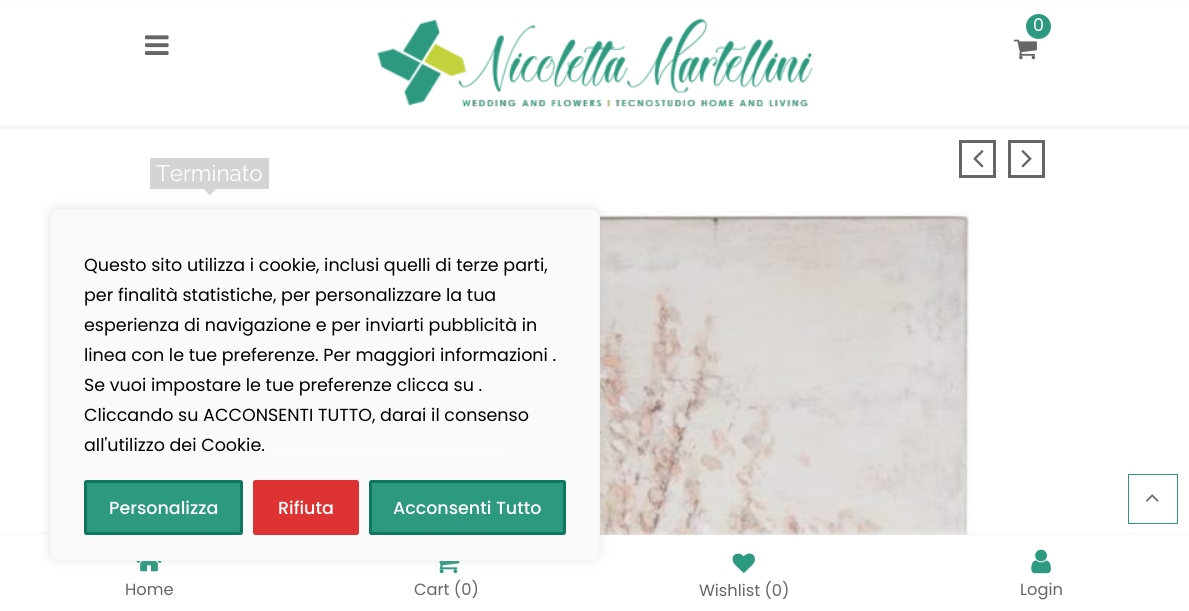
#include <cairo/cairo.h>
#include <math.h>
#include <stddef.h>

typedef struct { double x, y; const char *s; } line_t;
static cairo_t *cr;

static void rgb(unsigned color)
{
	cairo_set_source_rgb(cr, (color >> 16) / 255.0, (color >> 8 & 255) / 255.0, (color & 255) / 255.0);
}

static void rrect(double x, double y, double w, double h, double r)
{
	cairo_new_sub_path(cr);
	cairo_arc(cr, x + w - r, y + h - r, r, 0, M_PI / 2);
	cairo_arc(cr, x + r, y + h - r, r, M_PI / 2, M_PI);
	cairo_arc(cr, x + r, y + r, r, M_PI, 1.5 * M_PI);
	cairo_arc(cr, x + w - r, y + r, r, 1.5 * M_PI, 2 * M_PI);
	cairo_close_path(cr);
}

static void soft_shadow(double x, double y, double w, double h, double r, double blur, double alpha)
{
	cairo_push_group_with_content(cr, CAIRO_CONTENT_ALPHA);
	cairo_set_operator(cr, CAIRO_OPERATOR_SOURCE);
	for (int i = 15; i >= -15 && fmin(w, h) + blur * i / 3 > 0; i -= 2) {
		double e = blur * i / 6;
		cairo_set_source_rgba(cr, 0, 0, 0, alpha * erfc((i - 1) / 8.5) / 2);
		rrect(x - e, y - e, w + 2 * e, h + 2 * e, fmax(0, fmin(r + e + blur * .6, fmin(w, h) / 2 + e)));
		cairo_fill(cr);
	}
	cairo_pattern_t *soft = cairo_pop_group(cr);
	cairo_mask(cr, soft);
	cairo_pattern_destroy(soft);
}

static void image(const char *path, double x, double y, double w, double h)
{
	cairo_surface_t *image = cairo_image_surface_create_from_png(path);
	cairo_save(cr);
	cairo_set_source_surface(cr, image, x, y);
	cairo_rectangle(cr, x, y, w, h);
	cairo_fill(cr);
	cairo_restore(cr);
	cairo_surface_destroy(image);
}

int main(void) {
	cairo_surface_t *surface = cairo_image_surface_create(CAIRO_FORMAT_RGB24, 1189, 611);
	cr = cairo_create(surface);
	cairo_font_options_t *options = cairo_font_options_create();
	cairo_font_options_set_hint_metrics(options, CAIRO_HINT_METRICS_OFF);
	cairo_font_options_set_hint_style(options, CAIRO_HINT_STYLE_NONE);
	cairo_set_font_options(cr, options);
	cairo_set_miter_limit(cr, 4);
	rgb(0xffffff);
	cairo_paint(cr);
	rgb(0xf5f5f5);
	soft_shadow(0, 3, 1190, 126, 0, 0.5, 1);
	rgb(0xffffff);
	cairo_rectangle(cr, 0, 3, 1189, 123);
	cairo_fill(cr);
	image("img/1.png", 377, 18, 436, 89);
	rgb(0x2d9a7f);
	cairo_arc(cr, 1038.5, 26.5, 12.5, 0, 2 * M_PI);
	cairo_fill(cr);
	image("img/2.png", 1013, 39, 24, 21);
	image("img/3.png", 145, 35, 24, 20);
	rgb(0xd4d4d4);
	cairo_rectangle(cr, 150, 158, 119, 31);
	cairo_fill(cr);
	image("img/4.png", 204, 189, 12, 6);
	image("img/5.png", 597, 211, 376, 324);
	cairo_rectangle(cr, 960.5, 141.5, 34, 35);
	rgb(0x666666);
	cairo_set_line_width(cr, 3);
	cairo_stroke(cr);
	image("img/6.png", 973, 150, 11, 18);
	cairo_rectangle(cr, 1009.5, 141.5, 34, 35);
	cairo_stroke(cr);
	image("img/7.png", 1021, 150, 11, 18);
	rgb(0xf1f1f1);
	soft_shadow(0, 535, 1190, 76, 0, 3, 1);
	rgb(0xffffff);
	cairo_rectangle(cr, 0, 535, 1189, 76);
	cairo_fill(cr);
	image("img/9.png", 136, 561, 26, 11);
	image("img/10.png", 439, 561, 21, 13);
	rgb(0xacabab);
	soft_shadow(50, 208, 550, 352, 8, 6, 0.3);
	rgb(0xfafafa);
	rrect(50.5, 209.5, 549, 351, 7.5);
	cairo_fill_preserve(cr);
	rgb(0xf4f4f4);
	cairo_set_line_width(cr, 1);
	cairo_stroke(cr);
	rgb(0xffffff);
	cairo_rectangle(cr, 270, 453, 231, 1);
	cairo_fill(cr);
	rgb(0x2d9a7f);
	rrect(85.5, 481.5, 156, 52, 1);
	cairo_fill_preserve(cr);
	rgb(0x0f785e);
	cairo_set_line_width(cr, 3);
	cairo_stroke(cr);
	rgb(0xdd3333);
	rrect(254.5, 481.5, 103, 52, 1);
	cairo_fill_preserve(cr);
	cairo_stroke(cr);
	rgb(0x2d9a7f);
	rrect(370.5, 481.5, 194, 52, 1);
	cairo_fill_preserve(cr);
	rgb(0x0f785e);
	cairo_stroke(cr);
	cairo_rectangle(cr, 1128.5, 474.5, 49, 49);
	rgb(0x2d9a7f);
	cairo_set_line_width(cr, 1);
	cairo_stroke(cr);
	image("img/8.png", 1146, 494, 13, 8);
	image("img/11.png", 732, 553, 23, 20);
	image("img/12.png", 1031, 549, 20, 25);
	cairo_select_font_face(cr, "Poppins", CAIRO_FONT_SLANT_NORMAL, CAIRO_FONT_WEIGHT_NORMAL);
	cairo_set_font_size(cr, 17.5);
	rgb(0xffffff);
	cairo_move_to(cr, 1033, 31);
	cairo_show_text(cr, "0");
	cairo_select_font_face(cr, "Raleway", CAIRO_FONT_SLANT_NORMAL, CAIRO_FONT_WEIGHT_NORMAL);
	cairo_set_font_size(cr, 22.5);
	cairo_move_to(cr, 156, 181);
	cairo_show_text(cr, "Terminato");
	cairo_select_font_face(cr, "Poppins", CAIRO_FONT_SLANT_NORMAL, CAIRO_FONT_WEIGHT_NORMAL);
	cairo_set_font_size(cr, 17.5);
	rgb(0x000000);
	{
		static const line_t items[] = {
			{84, 271, "Questo sito utilizza i cookie, inclusi quelli di terze parti,"},
			{84, 301, "per finalità statistiche, per personalizzare la tua"},
			{84, 331, "esperienza di navigazione e per inviarti pubblicità in"},
			{84, 361, "linea con le tue preferenze. Per maggiori informazioni ."},
			{84, 391, "Se vuoi impostare le tue preferenze clicca su ."},
			{84, 421, "Cliccando su ACCONSENTI TUTTO, darai il consenso"},
			{84, 451, "all'utilizzo dei Cookie."},
		};
		for (size_t i = 0; i < sizeof items / sizeof *items; i++) {
			cairo_move_to(cr, items[i].x, items[i].y);
			cairo_show_text(cr, items[i].s);
		}
	}
	cairo_select_font_face(cr, "Poppins Medium", CAIRO_FONT_SLANT_NORMAL, CAIRO_FONT_WEIGHT_NORMAL);
	rgb(0xffffff);
	{
		static const line_t items[] = {
			{109, 514, "Personalizza"},
			{278, 514, "Rifiuta"},
			{393, 514, "Acconsenti Tutto"},
		};
		for (size_t i = 0; i < sizeof items / sizeof *items; i++) {
			cairo_move_to(cr, items[i].x, items[i].y);
			cairo_show_text(cr, items[i].s);
		}
	}
	cairo_select_font_face(cr, "Poppins", CAIRO_FONT_SLANT_NORMAL, CAIRO_FONT_WEIGHT_NORMAL);
	cairo_set_font_size(cr, 16.25);
	rgb(0x666666);
	{
		static const line_t items[] = {
			{125, 595, "Home"},
			{414, 595, "Cart (0)"},
			{699, 596, "Wishlist (0)"},
			{1020, 595, "Login"},
		};
		for (size_t i = 0; i < sizeof items / sizeof *items; i++) {
			cairo_move_to(cr, items[i].x, items[i].y);
			cairo_show_text(cr, items[i].s);
		}
	}
	cairo_surface_write_to_png(surface, "page.png");
	cairo_font_options_destroy(options);
	cairo_destroy(cr);
	cairo_surface_destroy(surface);
	return 0;
}
